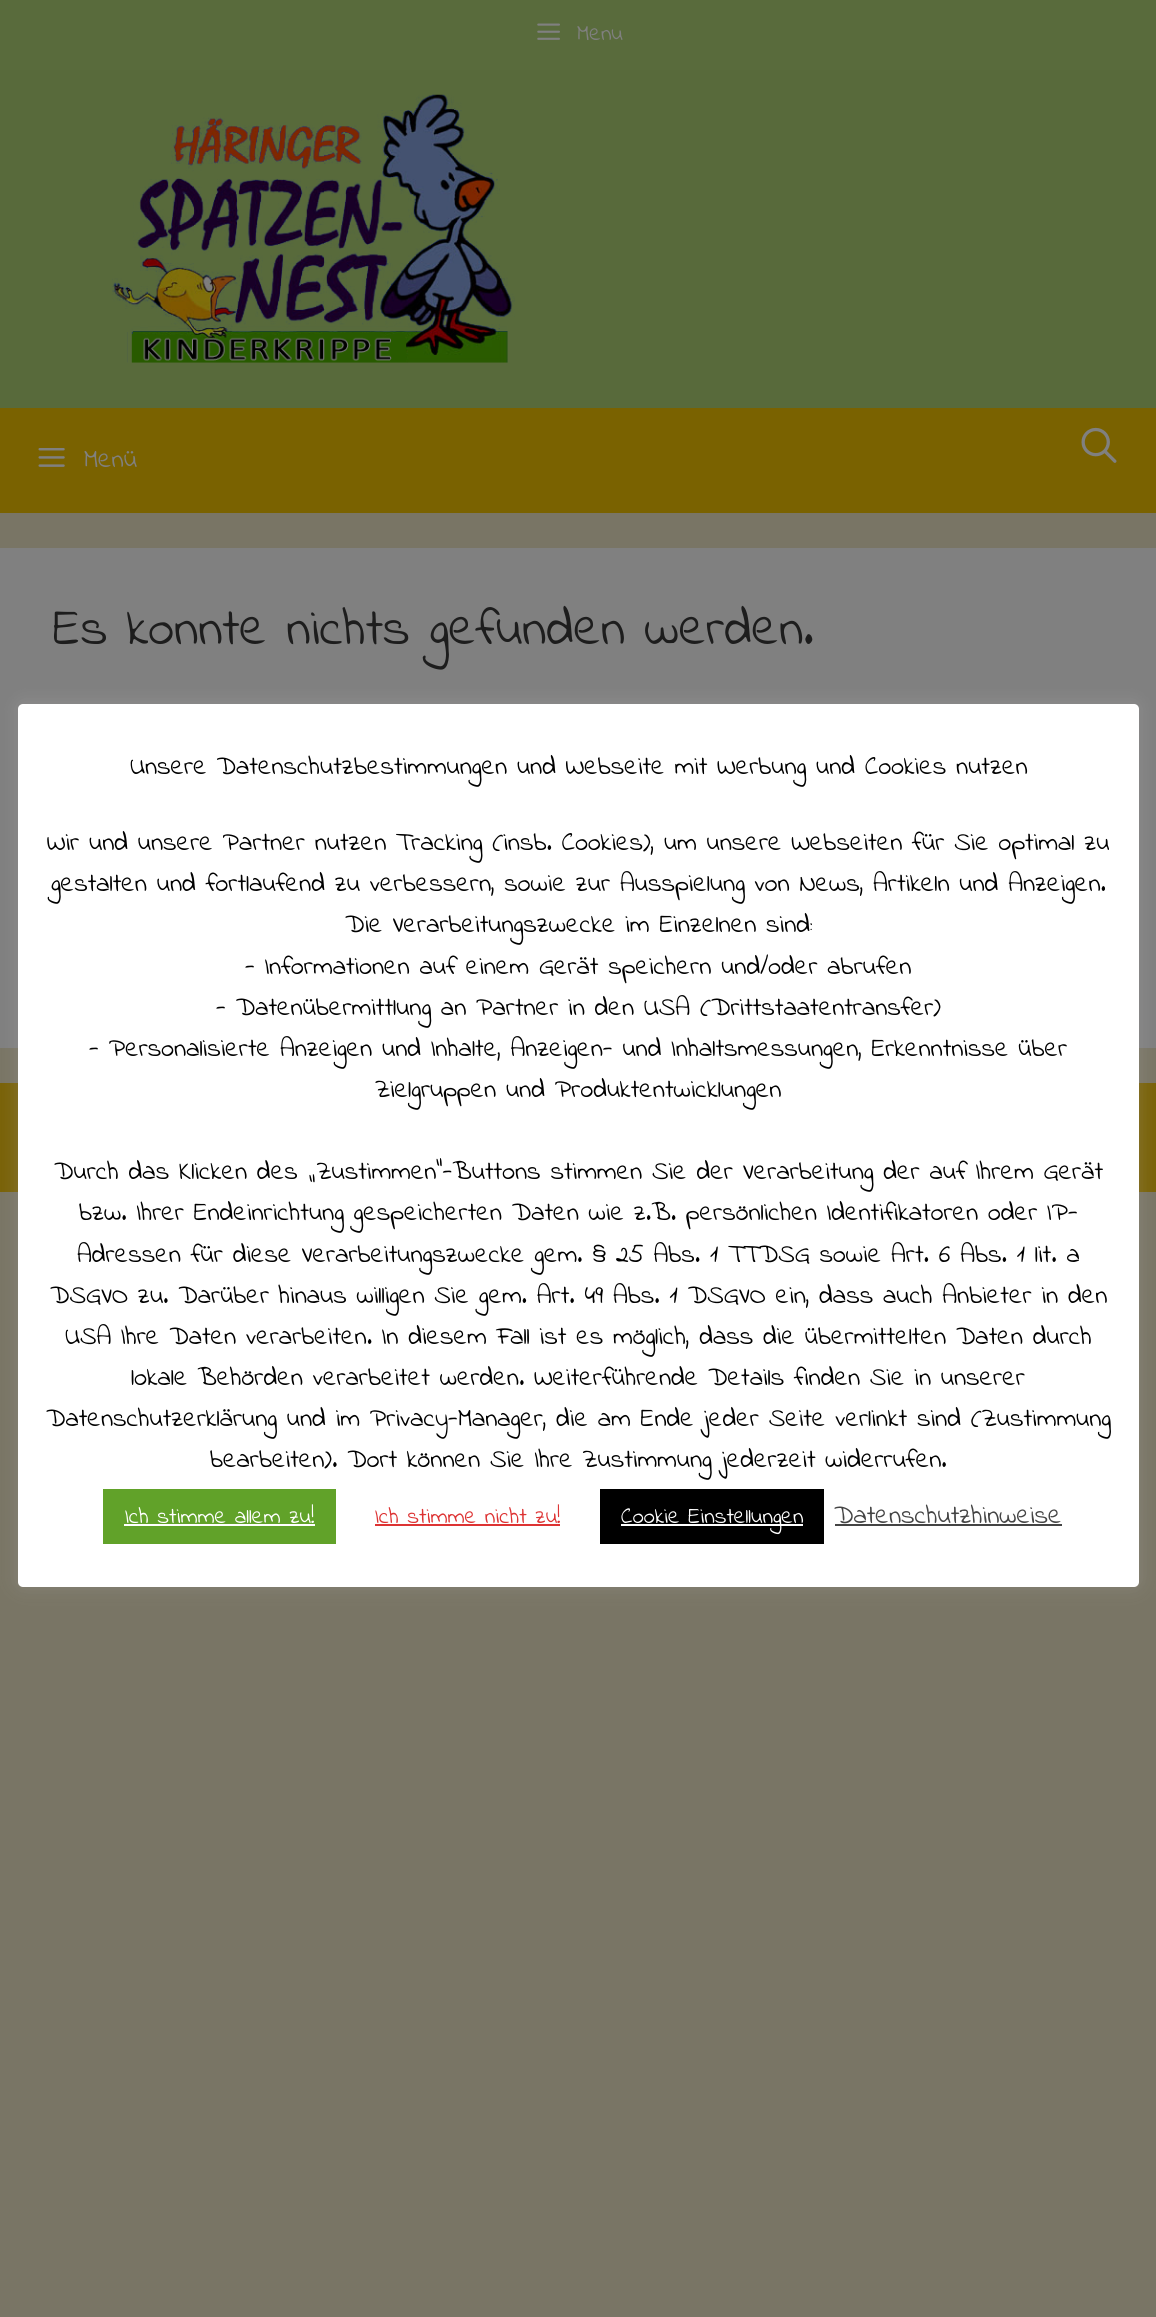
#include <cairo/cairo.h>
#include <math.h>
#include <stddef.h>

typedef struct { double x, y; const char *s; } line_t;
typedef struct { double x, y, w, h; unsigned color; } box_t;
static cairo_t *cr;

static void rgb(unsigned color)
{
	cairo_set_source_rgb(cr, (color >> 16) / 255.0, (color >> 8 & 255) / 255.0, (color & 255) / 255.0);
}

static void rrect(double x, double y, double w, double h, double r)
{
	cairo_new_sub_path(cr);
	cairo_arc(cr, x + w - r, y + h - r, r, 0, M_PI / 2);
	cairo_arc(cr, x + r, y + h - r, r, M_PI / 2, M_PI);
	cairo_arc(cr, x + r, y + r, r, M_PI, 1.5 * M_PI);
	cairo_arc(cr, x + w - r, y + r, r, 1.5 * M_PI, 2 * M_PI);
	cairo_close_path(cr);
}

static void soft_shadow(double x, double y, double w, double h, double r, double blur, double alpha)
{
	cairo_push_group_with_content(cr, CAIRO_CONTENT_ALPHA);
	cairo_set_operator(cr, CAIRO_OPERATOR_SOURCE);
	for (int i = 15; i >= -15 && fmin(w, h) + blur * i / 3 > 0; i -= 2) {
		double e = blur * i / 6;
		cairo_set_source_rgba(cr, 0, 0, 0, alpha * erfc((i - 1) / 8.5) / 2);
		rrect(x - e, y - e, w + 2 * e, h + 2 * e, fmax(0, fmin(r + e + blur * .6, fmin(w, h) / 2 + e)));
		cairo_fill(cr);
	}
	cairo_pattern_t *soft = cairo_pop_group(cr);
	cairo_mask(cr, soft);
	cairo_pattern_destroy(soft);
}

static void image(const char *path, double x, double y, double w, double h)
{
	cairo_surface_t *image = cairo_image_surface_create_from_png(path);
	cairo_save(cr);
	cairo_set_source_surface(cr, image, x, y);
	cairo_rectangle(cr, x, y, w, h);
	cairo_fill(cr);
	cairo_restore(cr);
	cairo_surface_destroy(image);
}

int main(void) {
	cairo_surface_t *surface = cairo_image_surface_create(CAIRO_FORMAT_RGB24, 1156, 2317);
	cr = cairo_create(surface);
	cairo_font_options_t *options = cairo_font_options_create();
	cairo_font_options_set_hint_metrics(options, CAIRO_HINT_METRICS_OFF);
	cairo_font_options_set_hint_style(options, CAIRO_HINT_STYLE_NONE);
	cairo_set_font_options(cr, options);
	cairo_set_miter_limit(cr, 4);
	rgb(0x797565);
	cairo_paint(cr);
	rgb(0x596b3c);
	cairo_rectangle(cr, 0, 0, 1156, 70);
	cairo_fill(cr);
	image("img/1.png", 537, 23, 23, 17);
	rgb(0x586a3b);
	cairo_rectangle(cr, 0, 70, 1156, 338);
	cairo_fill(cr);
	image("img/2.png", 112, 94, 403, 269);
	rgb(0x7a6200);
	cairo_rectangle(cr, 0, 408, 1156, 105);
	cairo_fill(cr);
	image("img/3.png", 38, 448, 27, 19);
	image("img/4.png", 1081, 427, 36, 36);
	rgb(0x808080);
	cairo_rectangle(cr, 0, 548, 1156, 500);
	cairo_fill(cr);
	rgb(0x796208);
	cairo_rectangle(cr, 0, 1083, 1156, 109);
	cairo_fill(cr);
	rgb(0xacabab);
	soft_shadow(18, 702, 1121, 884, 5, 9, 0.3);
	rgb(0xffffff);
	rrect(18, 704, 1121, 883, 5);
	cairo_fill(cr);
	{
		static const box_t items[] = {
			{103, 1489, 233, 55, 0x61a229},
			{124, 1524, 191, 2, 0xffffff},
			{375, 1524, 185, 2, 0xdd3333},
			{600, 1489, 224, 55, 0x000000},
			{621, 1524, 182, 2, 0xffffff},
			{835, 1524, 227, 2, 0x444444},
		};
		for (size_t i = 0; i < sizeof items / sizeof *items; i++) {
			rgb(items[i].color);
			cairo_rectangle(cr, items[i].x, items[i].y, items[i].w, items[i].h);
			cairo_fill(cr);
		}
	}
	cairo_select_font_face(cr, "Indie Flower", CAIRO_FONT_SLANT_NORMAL, CAIRO_FONT_WEIGHT_NORMAL);
	cairo_set_font_size(cr, 22.75);
	rgb(0x808080);
	cairo_move_to(cr, 577, 40);
	cairo_show_text(cr, "Menu");
	cairo_set_font_size(cr, 26.25);
	cairo_move_to(cr, 84, 467);
	cairo_show_text(cr, "Menü");
	cairo_set_font_size(cr, 52.5);
	rgb(0x1d1d1d);
	cairo_move_to(cr, 53, 644);
	cairo_show_text(cr, "Es konnte nichts gefunden werden.");
	cairo_set_font_size(cr, 26.25);
	rgb(0x000000);
	{
		static const line_t items[] = {
			{130, 774, "Unsere Datenschutzbestimmungen und Webseite mit Werbung und Cookies nutzen"},
			{47, 850, "Wir und unsere Partner nutzen Tracking (insb. Cookies), um unsere Webseiten für Sie optimal zu"},
			{51, 891, "gestalten und fortlaufend zu verbessern, sowie zur Ausspielung von News, Artikeln und Anzeigen."},
			{345, 932, "Die Verarbeitungszwecke im Einzelnen sind:"},
			{245, 974, "- Informationen auf einem Gerät speichern und/oder abrufen"},
			{216, 1015, "- Datenübermittlung an Partner in den USA (Drittstaatentransfer)"},
			{89, 1056, "- Personalisierte Anzeigen und Inhalte, Anzeigen- und Inhaltsmessungen, Erkenntnisse über"},
			{375, 1097, "Zielgruppen und Produktentwicklungen"},
			{54, 1179, "Durch das Klicken des „Zustimmen“-Buttons stimmen Sie der Verarbeitung der auf Ihrem Gerät"},
			{79, 1220, "bzw. Ihrer Endeinrichtung gespeicherten Daten wie z.B. persönlichen Identifikatoren oder IP-"},
			{77, 1262, "Adressen für diese Verarbeitungszwecke gem. § 25 Abs. 1 TTDSG sowie Art. 6 Abs. 1 lit. a"},
			{50, 1303, "DSGVO zu. Darüber hinaus willigen Sie gem. Art. 49 Abs. 1 DSGVO ein, dass auch Anbieter in den"},
			{65, 1344, "USA Ihre Daten verarbeiten. In diesem Fall ist es möglich, dass die übermittelten Daten durch"},
			{131, 1385, "lokale Behörden verarbeitet werden. Weiterführende Details finden Sie in unserer"},
			{46, 1426, "Datenschutzerklärung und im Privacy-Manager, die am Ende jeder Seite verlinkt sind (Zustimmung"},
			{210, 1467, "bearbeiten). Dort können Sie Ihre Zustimmung jederzeit widerrufen."},
		};
		for (size_t i = 0; i < sizeof items / sizeof *items; i++) {
			cairo_move_to(cr, items[i].x, items[i].y);
			cairo_show_text(cr, items[i].s);
		}
	}
	cairo_set_font_size(cr, 22.75);
	rgb(0xffffff);
	cairo_move_to(cr, 125, 1523);
	cairo_show_text(cr, "Ich stimme allem zu!");
	rgb(0xdd3333);
	cairo_move_to(cr, 375, 1523);
	cairo_show_text(cr, "Ich stimme nicht zu!");
	rgb(0xffffff);
	cairo_move_to(cr, 621, 1523);
	cairo_show_text(cr, "Cookie Einstellungen");
	cairo_set_font_size(cr, 26.25);
	rgb(0x444444);
	cairo_move_to(cr, 834, 1523);
	cairo_show_text(cr, "Datenschutzhinweise");
	cairo_surface_write_to_png(surface, "page.png");
	cairo_font_options_destroy(options);
	cairo_destroy(cr);
	cairo_surface_destroy(surface);
	return 0;
}
